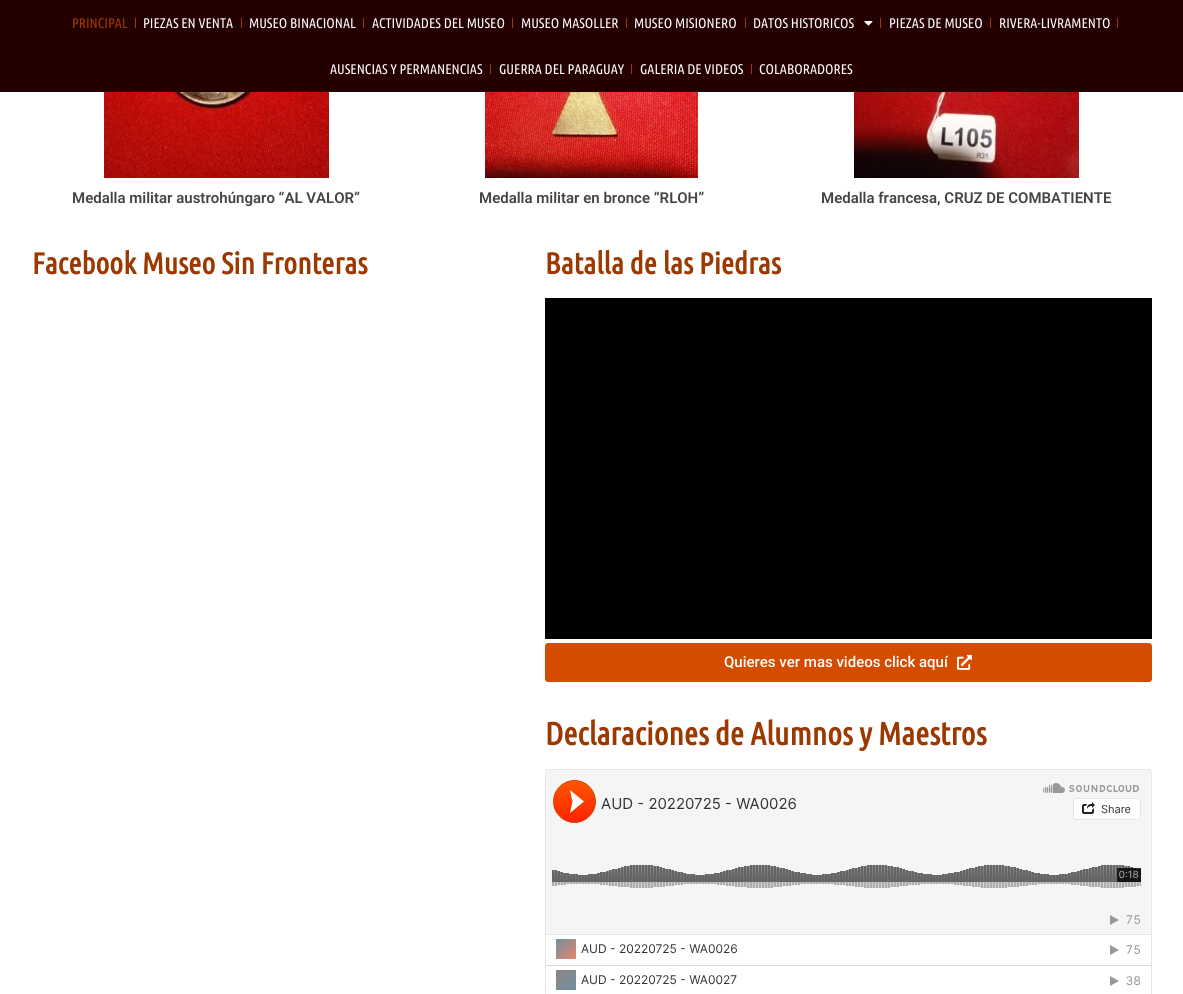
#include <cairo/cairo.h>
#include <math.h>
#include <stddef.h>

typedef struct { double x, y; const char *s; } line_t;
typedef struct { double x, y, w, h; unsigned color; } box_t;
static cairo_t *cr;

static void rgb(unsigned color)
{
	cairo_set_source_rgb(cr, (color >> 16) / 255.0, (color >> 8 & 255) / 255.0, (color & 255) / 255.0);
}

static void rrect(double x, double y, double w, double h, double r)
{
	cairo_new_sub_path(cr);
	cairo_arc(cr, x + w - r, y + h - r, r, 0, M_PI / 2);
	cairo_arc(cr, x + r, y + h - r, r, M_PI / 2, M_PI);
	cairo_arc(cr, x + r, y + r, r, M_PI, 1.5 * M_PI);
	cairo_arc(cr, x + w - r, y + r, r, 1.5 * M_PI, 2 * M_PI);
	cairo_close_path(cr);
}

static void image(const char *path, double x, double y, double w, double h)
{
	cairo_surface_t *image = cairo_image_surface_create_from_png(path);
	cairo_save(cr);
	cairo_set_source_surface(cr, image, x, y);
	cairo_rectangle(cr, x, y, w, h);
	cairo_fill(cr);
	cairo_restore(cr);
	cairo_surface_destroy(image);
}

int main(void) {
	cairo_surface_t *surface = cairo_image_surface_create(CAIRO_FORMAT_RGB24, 1183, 994);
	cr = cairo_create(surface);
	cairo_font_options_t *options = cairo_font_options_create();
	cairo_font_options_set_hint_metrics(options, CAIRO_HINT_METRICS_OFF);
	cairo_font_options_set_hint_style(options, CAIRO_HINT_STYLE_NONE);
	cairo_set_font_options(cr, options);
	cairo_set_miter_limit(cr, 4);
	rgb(0xffffff);
	cairo_paint(cr);
	{
		static const box_t items[] = {
			{0, 0, 1183, 92, 0x250000},
			{135, 18, 1, 10, 0x9c3901},
			{241, 18, 1, 10, 0x9c3901},
			{363, 18, 1, 10, 0x9c3901},
			{512, 18, 1, 10, 0x9c3901},
			{626, 18, 1, 10, 0x9c3901},
			{745, 18, 1, 10, 0x9c3901},
		};
		for (size_t i = 0; i < sizeof items / sizeof *items; i++) {
			rgb(items[i].color);
			cairo_rectangle(cr, items[i].x, items[i].y, items[i].w, items[i].h);
			cairo_fill(cr);
		}
	}
	image("img/1.png", 864, 21, 9, 5);
	{
		static const box_t items[] = {
			{880, 18, 1, 10, 0x9c3901},
			{990, 18, 1, 10, 0x9c3901},
			{1117, 18, 1, 10, 0x9c3901},
			{490, 64, 1, 10, 0x9c3901},
			{631, 64, 1, 10, 0x9c3901},
			{751, 64, 1, 10, 0x9c3901},
		};
		for (size_t i = 0; i < sizeof items / sizeof *items; i++) {
			rgb(items[i].color);
			cairo_rectangle(cr, items[i].x, items[i].y, items[i].w, items[i].h);
			cairo_fill(cr);
		}
	}
	image("img/2.png", 104, 92, 225, 86);
	image("img/3.png", 485, 92, 213, 86);
	image("img/4.png", 854, 92, 225, 86);
	rgb(0x000000);
	cairo_rectangle(cr, 545, 298, 607, 341);
	cairo_fill(cr);
	rgb(0xd34c00);
	rrect(545, 643, 607, 39, 3);
	cairo_fill(cr);
	image("img/5.png", 957, 654, 15, 16);
	image("img/6.png", 545, 769, 607, 225);
	cairo_select_font_face(cr, "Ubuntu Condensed", CAIRO_FONT_SLANT_NORMAL, CAIRO_FONT_WEIGHT_NORMAL);
	cairo_set_font_size(cr, 14);
	rgb(0x9c3901);
	cairo_move_to(cr, 72, 28);
	cairo_show_text(cr, "PRINCIPAL");
	rgb(0xffffff);
	{
		static const line_t items[] = {
			{143, 28, "PIEZAS EN VENTA"},
			{249, 28, "MUSEO BINACIONAL"},
			{372, 28, "ACTIVIDADES DEL MUSEO"},
			{521, 28, "MUSEO MASOLLER"},
			{634, 28, "MUSEO MISIONERO"},
			{753, 28, "DATOS HISTORICOS"},
			{889, 28, "PIEZAS DE MUSEO"},
			{999, 28, "RIVERA-LIVRAMENTO"},
			{330, 74, "AUSENCIAS Y PERMANENCIAS"},
			{499, 74, "GUERRA DEL PARAGUAY"},
			{640, 74, "GALERIA DE VIDEOS"},
			{759, 74, "COLABORADORES"},
		};
		for (size_t i = 0; i < sizeof items / sizeof *items; i++) {
			cairo_move_to(cr, items[i].x, items[i].y);
			cairo_show_text(cr, items[i].s);
		}
	}
	cairo_select_font_face(cr, "Roboto SemiBold", CAIRO_FONT_SLANT_NORMAL, CAIRO_FONT_WEIGHT_NORMAL);
	cairo_set_font_size(cr, 15);
	rgb(0x444444);
	{
		static const line_t items[] = {
			{72, 203, "Medalla militar austrohúngaro “AL VALOR”"},
			{479, 203, "Medalla militar en bronce “RLOH”"},
			{821, 203, "Medalla francesa, CRUZ DE COMBATIENTE"},
		};
		for (size_t i = 0; i < sizeof items / sizeof *items; i++) {
			cairo_move_to(cr, items[i].x, items[i].y);
			cairo_show_text(cr, items[i].s);
		}
	}
	cairo_select_font_face(cr, "Ubuntu Condensed", CAIRO_FONT_SLANT_NORMAL, CAIRO_FONT_WEIGHT_BOLD);
	cairo_set_font_size(cr, 30);
	rgb(0x9c3901);
	cairo_move_to(cr, 32, 274);
	cairo_show_text(cr, "Facebook Museo Sin Fronteras");
	cairo_move_to(cr, 545, 274);
	cairo_show_text(cr, "Batalla de las Piedras");
	cairo_select_font_face(cr, "Roboto Medium", CAIRO_FONT_SLANT_NORMAL, CAIRO_FONT_WEIGHT_NORMAL);
	cairo_set_font_size(cr, 15);
	rgb(0xffffff);
	cairo_move_to(cr, 724, 667);
	cairo_show_text(cr, "Quieres ver mas videos click aquí");
	cairo_select_font_face(cr, "Ubuntu Condensed", CAIRO_FONT_SLANT_NORMAL, CAIRO_FONT_WEIGHT_BOLD);
	cairo_set_font_size(cr, 32);
	rgb(0x9c3901);
	cairo_move_to(cr, 545, 745);
	cairo_show_text(cr, "Declaraciones de Alumnos y Maestros");
	cairo_surface_write_to_png(surface, "page.png");
	cairo_font_options_destroy(options);
	cairo_destroy(cr);
	cairo_surface_destroy(surface);
	return 0;
}
